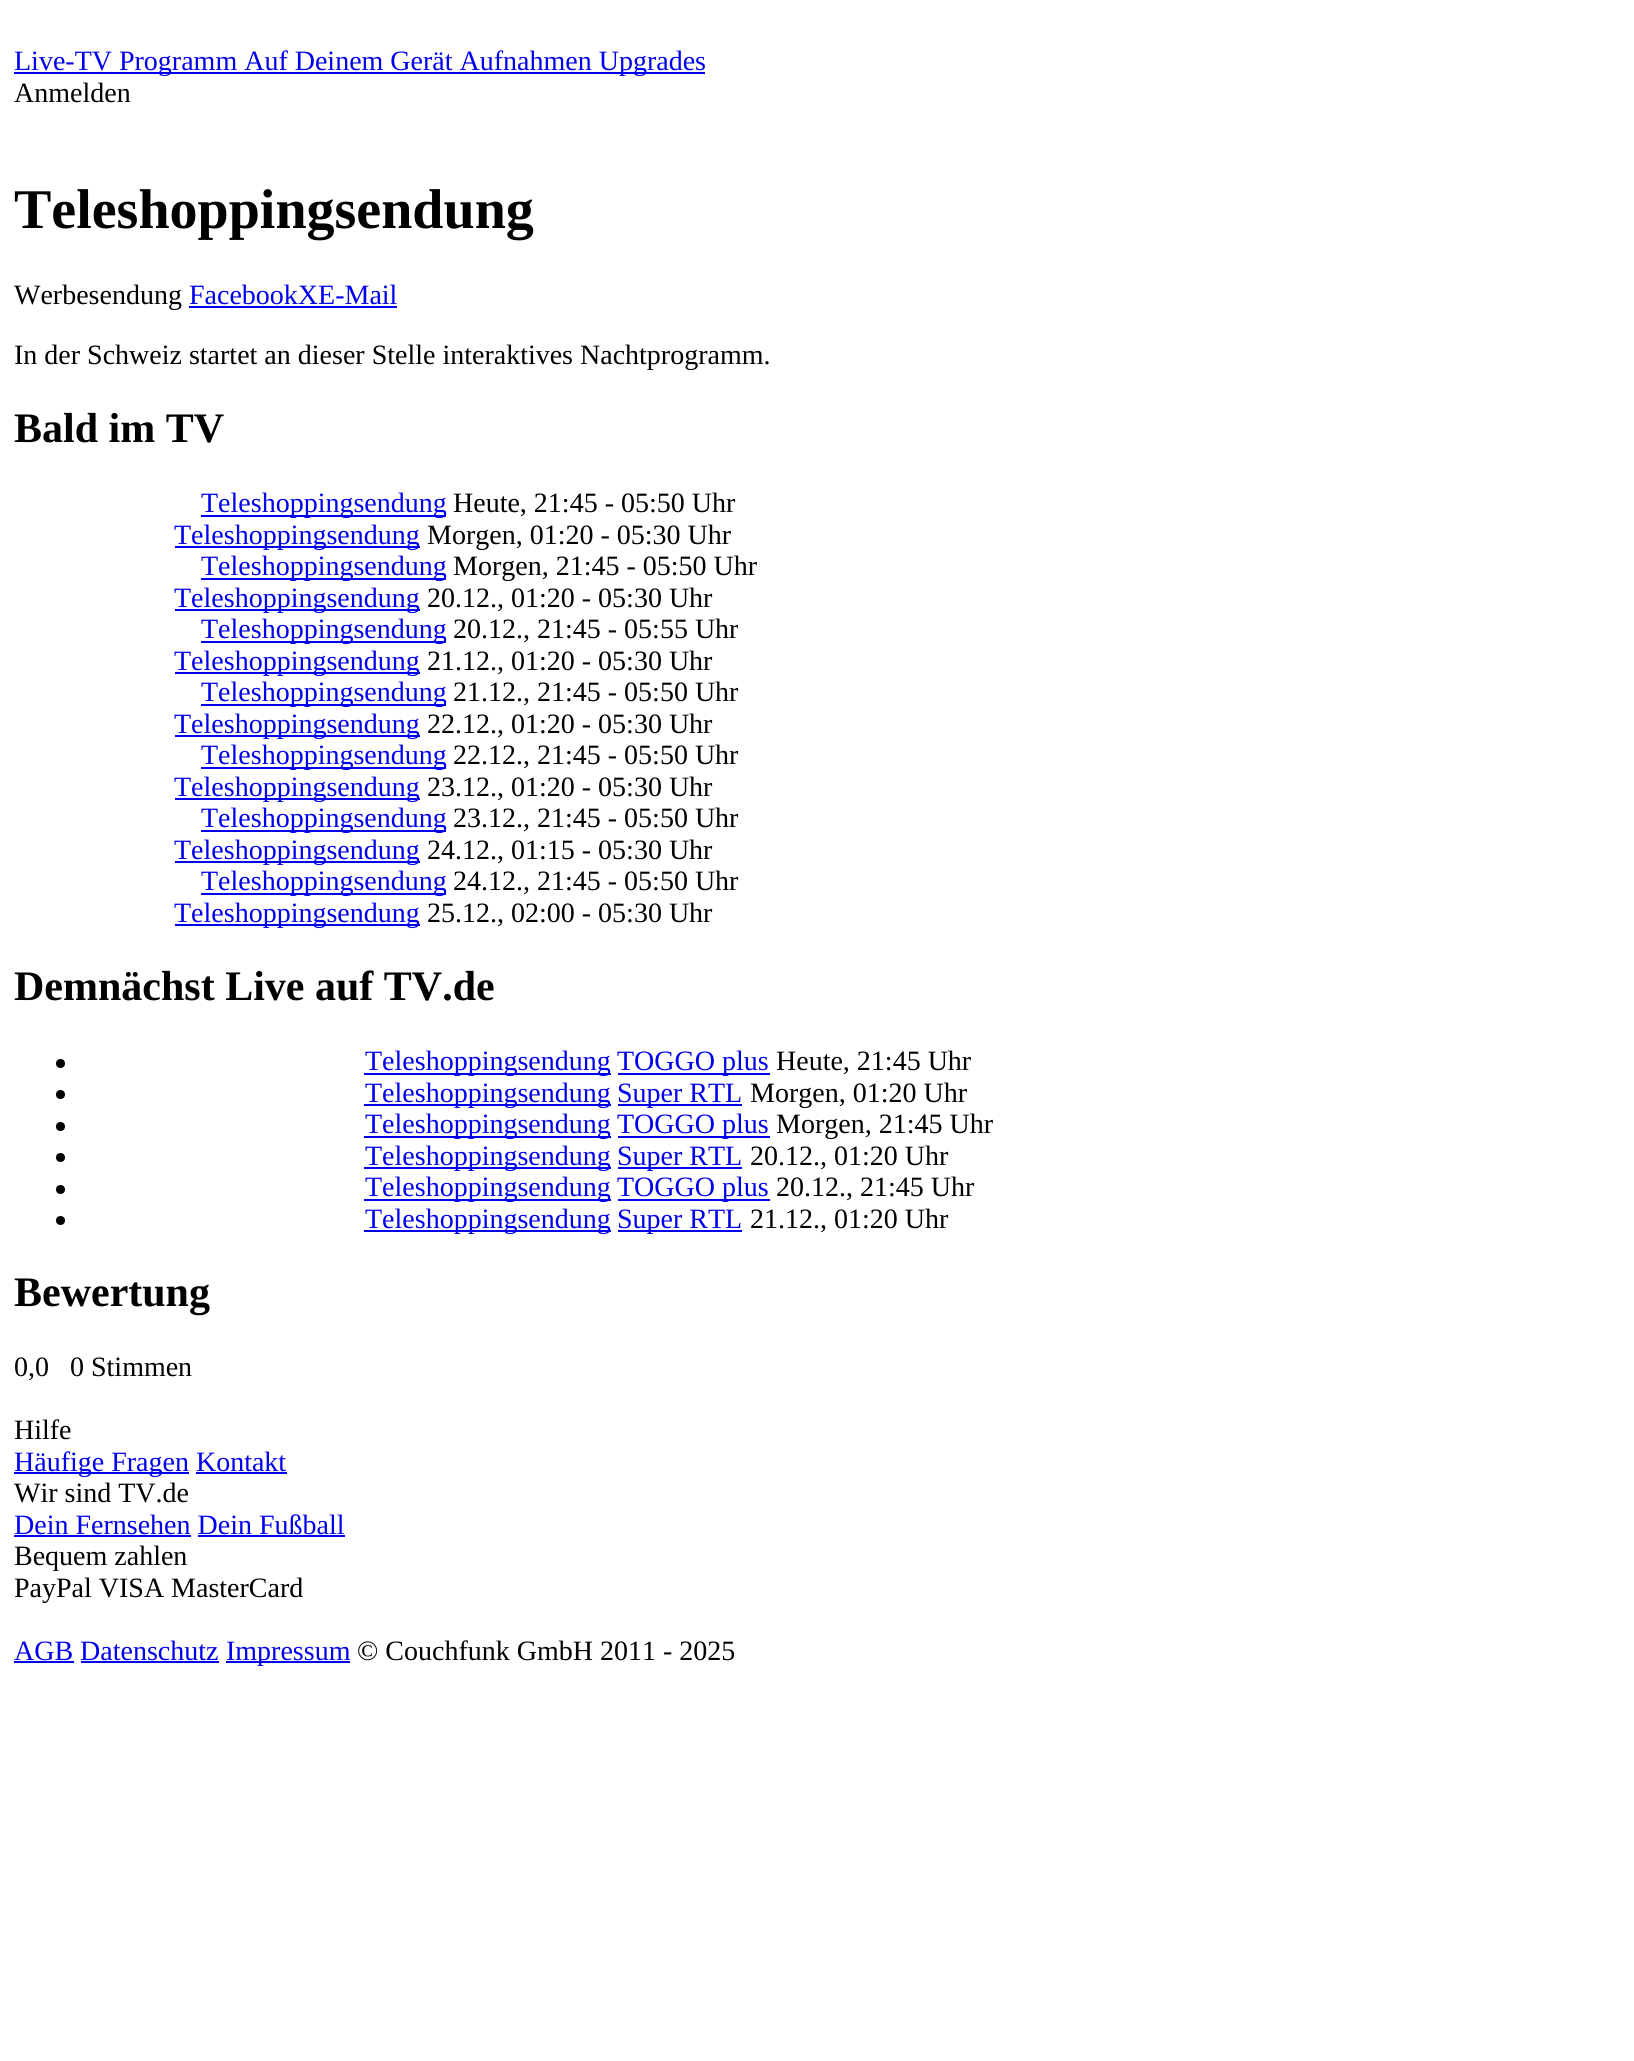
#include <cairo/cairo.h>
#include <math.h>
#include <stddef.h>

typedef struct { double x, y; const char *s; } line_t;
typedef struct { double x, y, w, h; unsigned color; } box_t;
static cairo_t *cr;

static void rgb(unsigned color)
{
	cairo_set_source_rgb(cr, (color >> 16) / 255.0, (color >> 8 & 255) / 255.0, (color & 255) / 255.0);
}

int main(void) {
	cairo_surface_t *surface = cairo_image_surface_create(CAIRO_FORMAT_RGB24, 1634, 2061);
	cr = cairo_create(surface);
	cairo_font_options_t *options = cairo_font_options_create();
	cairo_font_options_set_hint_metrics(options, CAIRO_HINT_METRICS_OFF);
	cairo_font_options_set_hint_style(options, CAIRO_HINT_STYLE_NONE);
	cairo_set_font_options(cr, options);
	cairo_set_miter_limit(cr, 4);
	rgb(0xffffff);
	cairo_paint(cr);
	{
		static const box_t items[] = {
			{14, 72, 691, 2, 0x0000ee},
			{189, 306, 208, 2, 0x0000ee},
			{201, 515, 245, 2, 0x0000ee},
			{175, 546, 245, 2, 0x0000ee},
			{201, 578, 245, 2, 0x0000ee},
			{175, 609, 245, 2, 0x0000ee},
			{201, 641, 245, 2, 0x0000ee},
			{175, 672, 245, 2, 0x0000ee},
			{201, 704, 245, 2, 0x0000ee},
			{175, 735, 245, 2, 0x0000ee},
			{201, 767, 245, 2, 0x0000ee},
			{175, 798, 245, 2, 0x0000ee},
			{201, 830, 245, 2, 0x0000ee},
			{175, 861, 245, 2, 0x0000ee},
			{201, 893, 245, 2, 0x0000ee},
			{175, 924, 245, 2, 0x0000ee},
		};
		for (size_t i = 0; i < sizeof items / sizeof *items; i++) {
			rgb(items[i].color);
			cairo_rectangle(cr, items[i].x, items[i].y, items[i].w, items[i].h);
			cairo_fill(cr);
		}
	}
	rgb(0x000000);
	cairo_arc(cr, 60.5, 1063.5, 4.5, 0, 2 * M_PI);
	cairo_fill(cr);
	rgb(0x0000ee);
	cairo_rectangle(cr, 364, 1073, 247, 2);
	cairo_fill(cr);
	cairo_rectangle(cr, 618, 1073, 152, 2);
	cairo_fill(cr);
	rgb(0x000000);
	cairo_arc(cr, 60.5, 1094.5, 4.5, 0, 2 * M_PI);
	cairo_fill(cr);
	rgb(0x0000ee);
	cairo_rectangle(cr, 364, 1104, 247, 2);
	cairo_fill(cr);
	cairo_rectangle(cr, 618, 1104, 124, 2);
	cairo_fill(cr);
	rgb(0x000000);
	cairo_arc(cr, 60.5, 1126.5, 4.5, 0, 2 * M_PI);
	cairo_fill(cr);
	rgb(0x0000ee);
	cairo_rectangle(cr, 364, 1136, 247, 2);
	cairo_fill(cr);
	cairo_rectangle(cr, 618, 1136, 152, 2);
	cairo_fill(cr);
	rgb(0x000000);
	cairo_arc(cr, 60.5, 1157.5, 4.5, 0, 2 * M_PI);
	cairo_fill(cr);
	rgb(0x0000ee);
	cairo_rectangle(cr, 364, 1167, 247, 2);
	cairo_fill(cr);
	cairo_rectangle(cr, 618, 1167, 124, 2);
	cairo_fill(cr);
	rgb(0x000000);
	cairo_arc(cr, 60.5, 1189.5, 4.5, 0, 2 * M_PI);
	cairo_fill(cr);
	rgb(0x0000ee);
	cairo_rectangle(cr, 364, 1199, 247, 2);
	cairo_fill(cr);
	cairo_rectangle(cr, 618, 1199, 152, 2);
	cairo_fill(cr);
	rgb(0x000000);
	cairo_arc(cr, 60.5, 1220.5, 4.5, 0, 2 * M_PI);
	cairo_fill(cr);
	{
		static const box_t items[] = {
			{364, 1230, 247, 2, 0x0000ee},
			{618, 1230, 124, 2, 0x0000ee},
			{14, 1472, 175, 2, 0x0000ee},
			{196, 1472, 91, 2, 0x0000ee},
			{14, 1535, 177, 2, 0x0000ee},
			{198, 1535, 147, 2, 0x0000ee},
			{14, 1661, 60, 2, 0x0000ee},
			{226, 1661, 124, 2, 0x0000ee},
			{81, 1661, 138, 2, 0x0000ee},
		};
		for (size_t i = 0; i < sizeof items / sizeof *items; i++) {
			rgb(items[i].color);
			cairo_rectangle(cr, items[i].x, items[i].y, items[i].w, items[i].h);
			cairo_fill(cr);
		}
	}
	cairo_select_font_face(cr, "Liberation Serif", CAIRO_FONT_SLANT_NORMAL, CAIRO_FONT_WEIGHT_NORMAL);
	cairo_set_font_size(cr, 28);
	cairo_move_to(cr, 14, 70);
	cairo_show_text(cr, "Live-TV Programm Auf Deinem Gerät Aufnahmen Upgrades");
	rgb(0x000000);
	cairo_move_to(cr, 14, 102);
	cairo_show_text(cr, "Anmelden");
	cairo_select_font_face(cr, "Liberation Serif", CAIRO_FONT_SLANT_NORMAL, CAIRO_FONT_WEIGHT_BOLD);
	cairo_set_font_size(cr, 56);
	cairo_move_to(cr, 14, 228);
	cairo_show_text(cr, "Teleshoppingsendung");
	cairo_select_font_face(cr, "Liberation Serif", CAIRO_FONT_SLANT_NORMAL, CAIRO_FONT_WEIGHT_NORMAL);
	cairo_set_font_size(cr, 28);
	cairo_move_to(cr, 14, 304);
	cairo_show_text(cr, "Werbesendung");
	rgb(0x0000ee);
	cairo_move_to(cr, 189, 304);
	cairo_show_text(cr, "FacebookXE-Mail");
	rgb(0x000000);
	cairo_move_to(cr, 14, 364);
	cairo_show_text(cr, "In der Schweiz startet an dieser Stelle interaktives Nachtprogramm.");
	cairo_select_font_face(cr, "Liberation Serif", CAIRO_FONT_SLANT_NORMAL, CAIRO_FONT_WEIGHT_BOLD);
	cairo_set_font_size(cr, 42);
	cairo_move_to(cr, 14, 442);
	cairo_show_text(cr, "Bald im TV");
	cairo_select_font_face(cr, "Liberation Serif", CAIRO_FONT_SLANT_NORMAL, CAIRO_FONT_WEIGHT_NORMAL);
	cairo_set_font_size(cr, 28);
	rgb(0x0000ee);
	cairo_move_to(cr, 201, 512);
	cairo_show_text(cr, "Teleshoppingsendung");
	rgb(0x000000);
	cairo_move_to(cr, 453, 512);
	cairo_show_text(cr, "Heute, 21:45 - 05:50 Uhr");
	rgb(0x0000ee);
	cairo_move_to(cr, 174, 544);
	cairo_show_text(cr, "Teleshoppingsendung");
	rgb(0x000000);
	cairo_move_to(cr, 427, 544);
	cairo_show_text(cr, "Morgen, 01:20 - 05:30 Uhr");
	rgb(0x0000ee);
	cairo_move_to(cr, 201, 575);
	cairo_show_text(cr, "Teleshoppingsendung");
	rgb(0x000000);
	cairo_move_to(cr, 453, 575);
	cairo_show_text(cr, "Morgen, 21:45 - 05:50 Uhr");
	rgb(0x0000ee);
	cairo_move_to(cr, 174, 607);
	cairo_show_text(cr, "Teleshoppingsendung");
	rgb(0x000000);
	cairo_move_to(cr, 427, 607);
	cairo_show_text(cr, "20.12., 01:20 - 05:30 Uhr");
	rgb(0x0000ee);
	cairo_move_to(cr, 201, 638);
	cairo_show_text(cr, "Teleshoppingsendung");
	rgb(0x000000);
	cairo_move_to(cr, 453, 638);
	cairo_show_text(cr, "20.12., 21:45 - 05:55 Uhr");
	rgb(0x0000ee);
	cairo_move_to(cr, 174, 670);
	cairo_show_text(cr, "Teleshoppingsendung");
	rgb(0x000000);
	cairo_move_to(cr, 427, 670);
	cairo_show_text(cr, "21.12., 01:20 - 05:30 Uhr");
	rgb(0x0000ee);
	cairo_move_to(cr, 201, 701);
	cairo_show_text(cr, "Teleshoppingsendung");
	rgb(0x000000);
	cairo_move_to(cr, 453, 701);
	cairo_show_text(cr, "21.12., 21:45 - 05:50 Uhr");
	rgb(0x0000ee);
	cairo_move_to(cr, 174, 733);
	cairo_show_text(cr, "Teleshoppingsendung");
	rgb(0x000000);
	cairo_move_to(cr, 427, 733);
	cairo_show_text(cr, "22.12., 01:20 - 05:30 Uhr");
	rgb(0x0000ee);
	cairo_move_to(cr, 201, 764);
	cairo_show_text(cr, "Teleshoppingsendung");
	rgb(0x000000);
	cairo_move_to(cr, 453, 764);
	cairo_show_text(cr, "22.12., 21:45 - 05:50 Uhr");
	rgb(0x0000ee);
	cairo_move_to(cr, 174, 796);
	cairo_show_text(cr, "Teleshoppingsendung");
	rgb(0x000000);
	cairo_move_to(cr, 427, 796);
	cairo_show_text(cr, "23.12., 01:20 - 05:30 Uhr");
	rgb(0x0000ee);
	cairo_move_to(cr, 201, 827);
	cairo_show_text(cr, "Teleshoppingsendung");
	rgb(0x000000);
	cairo_move_to(cr, 453, 827);
	cairo_show_text(cr, "23.12., 21:45 - 05:50 Uhr");
	rgb(0x0000ee);
	cairo_move_to(cr, 174, 859);
	cairo_show_text(cr, "Teleshoppingsendung");
	rgb(0x000000);
	cairo_move_to(cr, 427, 859);
	cairo_show_text(cr, "24.12., 01:15 - 05:30 Uhr");
	rgb(0x0000ee);
	cairo_move_to(cr, 201, 890);
	cairo_show_text(cr, "Teleshoppingsendung");
	rgb(0x000000);
	cairo_move_to(cr, 453, 890);
	cairo_show_text(cr, "24.12., 21:45 - 05:50 Uhr");
	rgb(0x0000ee);
	cairo_move_to(cr, 174, 922);
	cairo_show_text(cr, "Teleshoppingsendung");
	rgb(0x000000);
	cairo_move_to(cr, 427, 922);
	cairo_show_text(cr, "25.12., 02:00 - 05:30 Uhr");
	cairo_select_font_face(cr, "Liberation Serif", CAIRO_FONT_SLANT_NORMAL, CAIRO_FONT_WEIGHT_BOLD);
	cairo_set_font_size(cr, 42);
	cairo_move_to(cr, 14, 1000);
	cairo_show_text(cr, "Demnächst Live auf TV.de");
	cairo_select_font_face(cr, "Liberation Serif", CAIRO_FONT_SLANT_NORMAL, CAIRO_FONT_WEIGHT_NORMAL);
	cairo_set_font_size(cr, 28);
	rgb(0x0000ee);
	cairo_move_to(cr, 365, 1070);
	cairo_show_text(cr, "Teleshoppingsendung");
	cairo_move_to(cr, 617, 1070);
	cairo_show_text(cr, "TOGGO plus");
	rgb(0x000000);
	cairo_move_to(cr, 776, 1070);
	cairo_show_text(cr, "Heute, 21:45 Uhr");
	rgb(0x0000ee);
	cairo_move_to(cr, 365, 1102);
	cairo_show_text(cr, "Teleshoppingsendung");
	cairo_move_to(cr, 617, 1102);
	cairo_show_text(cr, "Super RTL");
	rgb(0x000000);
	cairo_move_to(cr, 750, 1102);
	cairo_show_text(cr, "Morgen, 01:20 Uhr");
	rgb(0x0000ee);
	cairo_move_to(cr, 365, 1133);
	cairo_show_text(cr, "Teleshoppingsendung");
	cairo_move_to(cr, 617, 1133);
	cairo_show_text(cr, "TOGGO plus");
	rgb(0x000000);
	cairo_move_to(cr, 776, 1133);
	cairo_show_text(cr, "Morgen, 21:45 Uhr");
	rgb(0x0000ee);
	cairo_move_to(cr, 365, 1165);
	cairo_show_text(cr, "Teleshoppingsendung");
	cairo_move_to(cr, 617, 1165);
	cairo_show_text(cr, "Super RTL");
	rgb(0x000000);
	cairo_move_to(cr, 750, 1165);
	cairo_show_text(cr, "20.12., 01:20 Uhr");
	rgb(0x0000ee);
	cairo_move_to(cr, 365, 1196);
	cairo_show_text(cr, "Teleshoppingsendung");
	cairo_move_to(cr, 617, 1196);
	cairo_show_text(cr, "TOGGO plus");
	rgb(0x000000);
	cairo_move_to(cr, 776, 1196);
	cairo_show_text(cr, "20.12., 21:45 Uhr");
	rgb(0x0000ee);
	cairo_move_to(cr, 365, 1228);
	cairo_show_text(cr, "Teleshoppingsendung");
	cairo_move_to(cr, 617, 1228);
	cairo_show_text(cr, "Super RTL");
	rgb(0x000000);
	cairo_move_to(cr, 750, 1228);
	cairo_show_text(cr, "21.12., 01:20 Uhr");
	cairo_select_font_face(cr, "Liberation Serif", CAIRO_FONT_SLANT_NORMAL, CAIRO_FONT_WEIGHT_BOLD);
	cairo_set_font_size(cr, 42);
	cairo_move_to(cr, 14, 1306);
	cairo_show_text(cr, "Bewertung");
	cairo_select_font_face(cr, "Liberation Serif", CAIRO_FONT_SLANT_NORMAL, CAIRO_FONT_WEIGHT_NORMAL);
	cairo_set_font_size(cr, 28);
	{
		static const line_t items[] = {
			{14, 1376, "0,0"},
			{70, 1376, "0 Stimmen"},
			{14, 1439, "Hilfe"},
		};
		for (size_t i = 0; i < sizeof items / sizeof *items; i++) {
			cairo_move_to(cr, items[i].x, items[i].y);
			cairo_show_text(cr, items[i].s);
		}
	}
	rgb(0x0000ee);
	cairo_move_to(cr, 14, 1471);
	cairo_show_text(cr, "Häufige Fragen Kontakt");
	rgb(0x000000);
	cairo_move_to(cr, 14, 1502);
	cairo_show_text(cr, "Wir sind TV.de");
	rgb(0x0000ee);
	cairo_move_to(cr, 14, 1534);
	cairo_show_text(cr, "Dein Fernsehen Dein Fußball");
	rgb(0x000000);
	cairo_move_to(cr, 14, 1565);
	cairo_show_text(cr, "Bequem zahlen");
	cairo_move_to(cr, 14, 1597);
	cairo_show_text(cr, "PayPal VISA MasterCard");
	rgb(0x0000ee);
	cairo_move_to(cr, 14, 1660);
	cairo_show_text(cr, "AGB Datenschutz");
	cairo_move_to(cr, 226, 1660);
	cairo_show_text(cr, "Impressum");
	rgb(0x000000);
	cairo_move_to(cr, 357, 1660);
	cairo_show_text(cr, "© Couchfunk GmbH 2011 - 2025");
	cairo_surface_write_to_png(surface, "page.png");
	cairo_font_options_destroy(options);
	cairo_destroy(cr);
	cairo_surface_destroy(surface);
	return 0;
}
